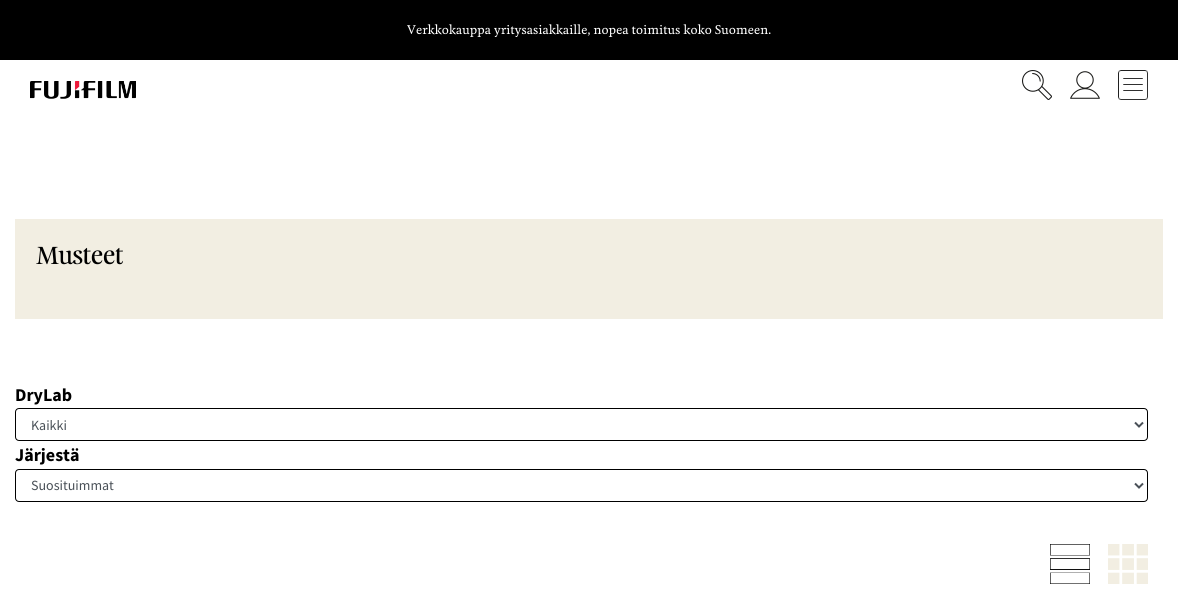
#include <cairo/cairo.h>
#include <math.h>
#include <stddef.h>

static cairo_t *cr;

static void rgb(unsigned color)
{
	cairo_set_source_rgb(cr, (color >> 16) / 255.0, (color >> 8 & 255) / 255.0, (color & 255) / 255.0);
}

static void rrect(double x, double y, double w, double h, double r)
{
	cairo_new_sub_path(cr);
	cairo_arc(cr, x + w - r, y + h - r, r, 0, M_PI / 2);
	cairo_arc(cr, x + r, y + h - r, r, M_PI / 2, M_PI);
	cairo_arc(cr, x + r, y + r, r, M_PI, 1.5 * M_PI);
	cairo_arc(cr, x + w - r, y + r, r, 1.5 * M_PI, 2 * M_PI);
	cairo_close_path(cr);
}

static void image(const char *path, double x, double y, double w, double h)
{
	cairo_surface_t *image = cairo_image_surface_create_from_png(path);
	cairo_save(cr);
	cairo_set_source_surface(cr, image, x, y);
	cairo_rectangle(cr, x, y, w, h);
	cairo_fill(cr);
	cairo_restore(cr);
	cairo_surface_destroy(image);
}

int main(void) {
	cairo_surface_t *surface = cairo_image_surface_create(CAIRO_FORMAT_RGB24, 1178, 613);
	cr = cairo_create(surface);
	cairo_font_options_t *options = cairo_font_options_create();
	cairo_font_options_set_hint_metrics(options, CAIRO_HINT_METRICS_OFF);
	cairo_font_options_set_hint_style(options, CAIRO_HINT_STYLE_NONE);
	cairo_set_font_options(cr, options);
	cairo_set_miter_limit(cr, 4);
	rgb(0xffffff);
	cairo_paint(cr);
	rgb(0x000000);
	cairo_rectangle(cr, 0, 0, 1178, 60);
	cairo_fill(cr);
	image("img/1.png", 407, 24, 364, 13);
	image("img/2.png", 30, 81, 106, 18);
	image("img/3.png", 1022, 70, 30, 30);
	image("img/4.png", 1070, 71, 30, 28);
	image("img/5.png", 1118, 70, 30, 30);
	rgb(0xf2eee2);
	cairo_rectangle(cr, 15, 219, 1148, 100);
	cairo_fill(cr);
	image("img/6.png", 36, 246, 87, 19);
	rrect(15.5, 408.5, 1132, 32, 3.5);
	rgb(0x000000);
	cairo_set_line_width(cr, 1);
	cairo_stroke(cr);
	cairo_new_path(cr);
	cairo_move_to(cr, 1135, 422.5);
	cairo_line_to(cr, 1139, 426.5);
	cairo_line_to(cr, 1143, 422.5);
	rgb(0x495057);
	cairo_set_line_width(cr, 2);
	cairo_stroke(cr);
	rrect(15.5, 469.5, 1132, 32, 3.5);
	rgb(0x000000);
	cairo_set_line_width(cr, 1);
	cairo_stroke(cr);
	cairo_new_path(cr);
	cairo_move_to(cr, 1135, 483.5);
	cairo_line_to(cr, 1139, 487.5);
	cairo_line_to(cr, 1143, 483.5);
	rgb(0x495057);
	cairo_set_line_width(cr, 2);
	cairo_stroke(cr);
	image("img/7.png", 1050, 544, 40, 40);
	image("img/8.png", 1108, 544, 40, 40);
	cairo_select_font_face(cr, "Source Sans Pro", CAIRO_FONT_SLANT_NORMAL, CAIRO_FONT_WEIGHT_BOLD);
	cairo_set_font_size(cr, 18);
	rgb(0x000000);
	cairo_move_to(cr, 15, 401);
	cairo_show_text(cr, "DryLab");
	cairo_select_font_face(cr, "Source Sans Pro", CAIRO_FONT_SLANT_NORMAL, CAIRO_FONT_WEIGHT_NORMAL);
	cairo_set_font_size(cr, 14);
	rgb(0x495057);
	cairo_move_to(cr, 31, 430);
	cairo_show_text(cr, "Kaikki");
	cairo_select_font_face(cr, "Source Sans Pro", CAIRO_FONT_SLANT_NORMAL, CAIRO_FONT_WEIGHT_BOLD);
	cairo_set_font_size(cr, 18);
	rgb(0x000000);
	cairo_move_to(cr, 15, 461);
	cairo_show_text(cr, "Järjestä");
	cairo_select_font_face(cr, "Source Sans Pro", CAIRO_FONT_SLANT_NORMAL, CAIRO_FONT_WEIGHT_NORMAL);
	cairo_set_font_size(cr, 14);
	rgb(0x495057);
	cairo_move_to(cr, 31, 490);
	cairo_show_text(cr, "Suosituimmat");
	cairo_surface_write_to_png(surface, "page.png");
	cairo_font_options_destroy(options);
	cairo_destroy(cr);
	cairo_surface_destroy(surface);
	return 0;
}
